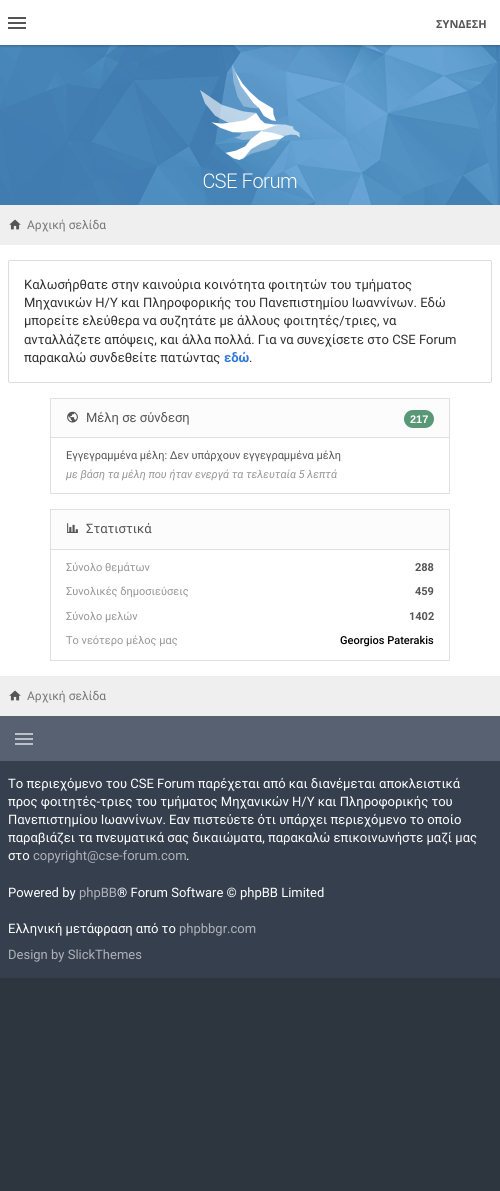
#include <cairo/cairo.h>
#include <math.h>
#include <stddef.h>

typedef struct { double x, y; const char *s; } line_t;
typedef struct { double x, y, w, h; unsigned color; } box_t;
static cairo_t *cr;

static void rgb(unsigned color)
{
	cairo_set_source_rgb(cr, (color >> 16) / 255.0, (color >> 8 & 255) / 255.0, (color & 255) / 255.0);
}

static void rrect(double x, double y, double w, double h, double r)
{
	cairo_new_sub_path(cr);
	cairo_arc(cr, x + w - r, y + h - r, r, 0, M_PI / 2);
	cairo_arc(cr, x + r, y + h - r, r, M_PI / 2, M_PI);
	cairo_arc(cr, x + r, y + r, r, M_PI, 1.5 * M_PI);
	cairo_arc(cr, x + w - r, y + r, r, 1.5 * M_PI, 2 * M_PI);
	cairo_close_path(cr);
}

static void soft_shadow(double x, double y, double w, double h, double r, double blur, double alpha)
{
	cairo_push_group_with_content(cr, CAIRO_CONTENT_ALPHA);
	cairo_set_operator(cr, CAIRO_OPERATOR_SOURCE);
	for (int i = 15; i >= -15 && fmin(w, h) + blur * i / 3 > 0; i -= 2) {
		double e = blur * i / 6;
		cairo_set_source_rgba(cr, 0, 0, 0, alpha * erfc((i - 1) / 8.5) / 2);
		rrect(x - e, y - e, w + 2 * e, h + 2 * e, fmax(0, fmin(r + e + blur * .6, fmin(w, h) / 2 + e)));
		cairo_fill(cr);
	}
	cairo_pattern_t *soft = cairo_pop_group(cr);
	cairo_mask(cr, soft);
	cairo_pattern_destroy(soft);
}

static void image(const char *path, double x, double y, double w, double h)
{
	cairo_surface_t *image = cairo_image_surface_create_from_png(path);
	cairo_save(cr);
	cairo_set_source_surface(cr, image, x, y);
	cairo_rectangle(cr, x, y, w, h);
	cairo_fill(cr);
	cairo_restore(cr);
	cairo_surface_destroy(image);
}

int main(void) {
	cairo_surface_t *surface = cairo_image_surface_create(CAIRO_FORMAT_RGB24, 500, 1191);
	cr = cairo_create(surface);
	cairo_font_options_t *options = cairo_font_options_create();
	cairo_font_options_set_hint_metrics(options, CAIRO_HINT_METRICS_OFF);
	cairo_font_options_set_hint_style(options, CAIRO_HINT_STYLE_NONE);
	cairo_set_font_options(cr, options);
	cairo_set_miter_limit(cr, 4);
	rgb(0x2d363e);
	cairo_paint(cr);
	rgb(0x4694d9);
	cairo_rectangle(cr, 0, 45, 500, 160);
	cairo_fill(cr);
	image("img/1.png", 0, 45, 500, 160);
	rgb(0x000000);
	soft_shadow(0, 2, 500, 45, 0, 0.5, 0.08);
	soft_shadow(0, 1, 500, 45, 0, 0.5, 0.1);
	{
		static const box_t items[] = {
			{0, 0, 500, 45, 0xffffff},
			{8, 17, 18, 2, 0x555555},
			{8, 22, 18, 2, 0x555555},
			{8, 27, 18, 2, 0x555555},
		};
		for (size_t i = 0; i < sizeof items / sizeof *items; i++) {
			rgb(items[i].color);
			cairo_rectangle(cr, items[i].x, items[i].y, items[i].w, items[i].h);
			cairo_fill(cr);
		}
	}
	image("img/2.png", 200, 64, 100, 124);
	rgb(0xffffff);
	cairo_rectangle(cr, 0, 245, 500, 431);
	cairo_fill(cr);
	rgb(0xefefef);
	cairo_rectangle(cr, 0, 205, 500, 40);
	cairo_fill(cr);
	image("img/3.png", 9, 219, 12, 11);
	rrect(8.5, 260.5, 483, 122, 1.5);
	rgb(0xdddddd);
	cairo_set_line_width(cr, 1);
	cairo_stroke(cr);
	cairo_rectangle(cr, 50.5, 398.5, 399, 95);
	rgb(0xe0e0e0);
	cairo_stroke(cr);
	rgb(0xfcfcfc);
	cairo_rectangle(cr, 51, 399, 398, 38);
	cairo_fill(cr);
	rgb(0xe0e0e0);
	cairo_rectangle(cr, 51, 437, 398, 1);
	cairo_fill(cr);
	image("img/4.png", 67, 411, 11, 12);
	rgb(0x599877);
	rrect(404, 410, 30, 18, 9);
	cairo_fill(cr);
	cairo_rectangle(cr, 50.5, 509.5, 399, 151);
	rgb(0xe0e0e0);
	cairo_stroke(cr);
	rgb(0xfcfcfc);
	cairo_rectangle(cr, 51, 510, 398, 39);
	cairo_fill(cr);
	rgb(0xe0e0e0);
	cairo_rectangle(cr, 51, 549, 398, 1);
	cairo_fill(cr);
	image("img/5.png", 67, 523, 11, 10);
	rgb(0xefefef);
	cairo_rectangle(cr, 0, 676, 500, 40);
	cairo_fill(cr);
	image("img/3.png", 9, 690, 12, 11);
	{
		static const box_t items[] = {
			{0, 716, 500, 45, 0x576172},
			{15, 733, 18, 2, 0xbcc0c7},
			{15, 738, 18, 2, 0xbcc0c7},
			{15, 743, 18, 2, 0xbcc0c7},
			{0, 761, 500, 217, 0x363f4e},
		};
		for (size_t i = 0; i < sizeof items / sizeof *items; i++) {
			rgb(items[i].color);
			cairo_rectangle(cr, items[i].x, items[i].y, items[i].w, items[i].h);
			cairo_fill(cr);
		}
	}
	cairo_select_font_face(cr, "Open Sans", CAIRO_FONT_SLANT_NORMAL, CAIRO_FONT_WEIGHT_BOLD);
	cairo_set_font_size(cr, 11);
	rgb(0x555555);
	cairo_move_to(cr, 436, 28);
	cairo_show_text(cr, "ΣΥΝΔΕΣΗ");
	cairo_select_font_face(cr, "Roboto", CAIRO_FONT_SLANT_NORMAL, CAIRO_FONT_WEIGHT_NORMAL);
	cairo_set_font_size(cr, 12);
	rgb(0x777777);
	cairo_move_to(cr, 27, 229);
	cairo_show_text(cr, "Αρχική σελίδα");
	cairo_set_font_size(cr, 13);
	rgb(0x303030);
	{
		static const line_t items[] = {
			{24, 289, "Καλωσήρθατε στην καινούρια κοινότητα φοιτητών του τμήματος"},
			{24, 307, "Μηχανικών Η/Υ και Πληροφορικής του Πανεπιστημίου Ιωαννίνων. Εδώ"},
			{24, 325, "μπορείτε ελεύθερα να συζητάτε με άλλους φοιτητές/τριες, να"},
			{24, 344, "ανταλλάζετε απόψεις, και άλλα πολλά. Για να συνεχίσετε στο CSE Forum"},
			{24, 362, "παρακαλώ συνδεθείτε πατώντας"},
		};
		for (size_t i = 0; i < sizeof items / sizeof *items; i++) {
			cairo_move_to(cr, items[i].x, items[i].y);
			cairo_show_text(cr, items[i].s);
		}
	}
	cairo_select_font_face(cr, "Roboto", CAIRO_FONT_SLANT_NORMAL, CAIRO_FONT_WEIGHT_BOLD);
	rgb(0x2d76d7);
	cairo_move_to(cr, 224, 362);
	cairo_show_text(cr, "εδώ");
	cairo_select_font_face(cr, "Roboto", CAIRO_FONT_SLANT_NORMAL, CAIRO_FONT_WEIGHT_NORMAL);
	rgb(0x303030);
	cairo_move_to(cr, 249, 362);
	cairo_show_text(cr, ".");
	rgb(0x555555);
	cairo_move_to(cr, 86, 422);
	cairo_show_text(cr, "Μέλη σε σύνδεση");
	cairo_select_font_face(cr, "Liberation Sans", CAIRO_FONT_SLANT_NORMAL, CAIRO_FONT_WEIGHT_BOLD);
	cairo_set_font_size(cr, 11);
	rgb(0xffffff);
	cairo_move_to(cr, 410, 423);
	cairo_show_text(cr, "217");
	cairo_select_font_face(cr, "Roboto", CAIRO_FONT_SLANT_NORMAL, CAIRO_FONT_WEIGHT_NORMAL);
	rgb(0x555555);
	cairo_move_to(cr, 66, 459);
	cairo_show_text(cr, "Εγγεγραμμένα μέλη: Δεν υπάρχουν εγγεγραμμένα μέλη");
	cairo_select_font_face(cr, "Roboto", CAIRO_FONT_SLANT_ITALIC, CAIRO_FONT_WEIGHT_NORMAL);
	rgb(0x969696);
	cairo_move_to(cr, 66, 478);
	cairo_show_text(cr, "με βάση τα μέλη που ήταν ενεργά τα τελευταία 5 λεπτά");
	cairo_select_font_face(cr, "Roboto", CAIRO_FONT_SLANT_NORMAL, CAIRO_FONT_WEIGHT_NORMAL);
	cairo_set_font_size(cr, 13);
	rgb(0x555555);
	cairo_move_to(cr, 86, 533);
	cairo_show_text(cr, "Στατιστικά");
	cairo_set_font_size(cr, 11);
	rgb(0x969696);
	cairo_move_to(cr, 66, 571);
	cairo_show_text(cr, "Σύνολο θεμάτων");
	cairo_select_font_face(cr, "Roboto", CAIRO_FONT_SLANT_NORMAL, CAIRO_FONT_WEIGHT_BOLD);
	rgb(0x555555);
	cairo_move_to(cr, 415, 571);
	cairo_show_text(cr, "288");
	cairo_select_font_face(cr, "Roboto", CAIRO_FONT_SLANT_NORMAL, CAIRO_FONT_WEIGHT_NORMAL);
	rgb(0x969696);
	cairo_move_to(cr, 66, 595);
	cairo_show_text(cr, "Συνολικές δημοσιεύσεις");
	cairo_select_font_face(cr, "Roboto", CAIRO_FONT_SLANT_NORMAL, CAIRO_FONT_WEIGHT_BOLD);
	rgb(0x555555);
	cairo_move_to(cr, 415, 595);
	cairo_show_text(cr, "459");
	cairo_select_font_face(cr, "Roboto", CAIRO_FONT_SLANT_NORMAL, CAIRO_FONT_WEIGHT_NORMAL);
	rgb(0x969696);
	cairo_move_to(cr, 66, 620);
	cairo_show_text(cr, "Σύνολο μελών");
	cairo_select_font_face(cr, "Roboto", CAIRO_FONT_SLANT_NORMAL, CAIRO_FONT_WEIGHT_BOLD);
	rgb(0x555555);
	cairo_move_to(cr, 409, 620);
	cairo_show_text(cr, "1402");
	cairo_select_font_face(cr, "Roboto", CAIRO_FONT_SLANT_NORMAL, CAIRO_FONT_WEIGHT_NORMAL);
	rgb(0x969696);
	cairo_move_to(cr, 66, 644);
	cairo_show_text(cr, "Το νεότερο μέλος μας");
	cairo_select_font_face(cr, "Roboto Medium", CAIRO_FONT_SLANT_NORMAL, CAIRO_FONT_WEIGHT_NORMAL);
	rgb(0x000000);
	cairo_move_to(cr, 340, 644);
	cairo_show_text(cr, "Georgios Paterakis");
	cairo_select_font_face(cr, "Roboto", CAIRO_FONT_SLANT_NORMAL, CAIRO_FONT_WEIGHT_NORMAL);
	cairo_set_font_size(cr, 12);
	rgb(0x777777);
	cairo_move_to(cr, 27, 700);
	cairo_show_text(cr, "Αρχική σελίδα");
	cairo_set_font_size(cr, 13);
	rgb(0xffffff);
	{
		static const line_t items[] = {
			{8, 788, "Το περιεχόμενο του CSE Forum παρέχεται από και διανέμεται αποκλειστικά"},
			{8, 806, "προς φοιτητές-τριες του τμήματος Μηχανικών Η/Υ και Πληροφορικής του"},
			{8, 824, "Πανεπιστημίου Ιωαννίνων. Εαν πιστεύετε ότι υπάρχει περιεχόμενο το οποίο"},
			{8, 842, "παραβιάζει τα πνευματικά σας δικαιώματα, παρακαλώ επικοινωνήστε μαζί μας"},
			{8, 860, "στο"},
		};
		for (size_t i = 0; i < sizeof items / sizeof *items; i++) {
			cairo_move_to(cr, items[i].x, items[i].y);
			cairo_show_text(cr, items[i].s);
		}
	}
	rgb(0xafb2b8);
	cairo_move_to(cr, 33, 860);
	cairo_show_text(cr, "copyright@cse-forum.com");
	rgb(0xffffff);
	cairo_move_to(cr, 186, 860);
	cairo_show_text(cr, ".");
	cairo_move_to(cr, 8, 897);
	cairo_show_text(cr, "Powered by");
	rgb(0xafb2b8);
	cairo_move_to(cr, 79, 897);
	cairo_show_text(cr, "phpBB");
	rgb(0xffffff);
	cairo_move_to(cr, 117, 897);
	cairo_show_text(cr, "® Forum Software © phpBB Limited");
	cairo_move_to(cr, 8, 933);
	cairo_show_text(cr, "Ελληνική μετάφραση από το");
	rgb(0xafb2b8);
	cairo_move_to(cr, 179, 933);
	cairo_show_text(cr, "phpbbgr.com");
	cairo_move_to(cr, 8, 959);
	cairo_show_text(cr, "Design by SlickThemes");
	cairo_surface_write_to_png(surface, "page.png");
	cairo_font_options_destroy(options);
	cairo_destroy(cr);
	cairo_surface_destroy(surface);
	return 0;
}
